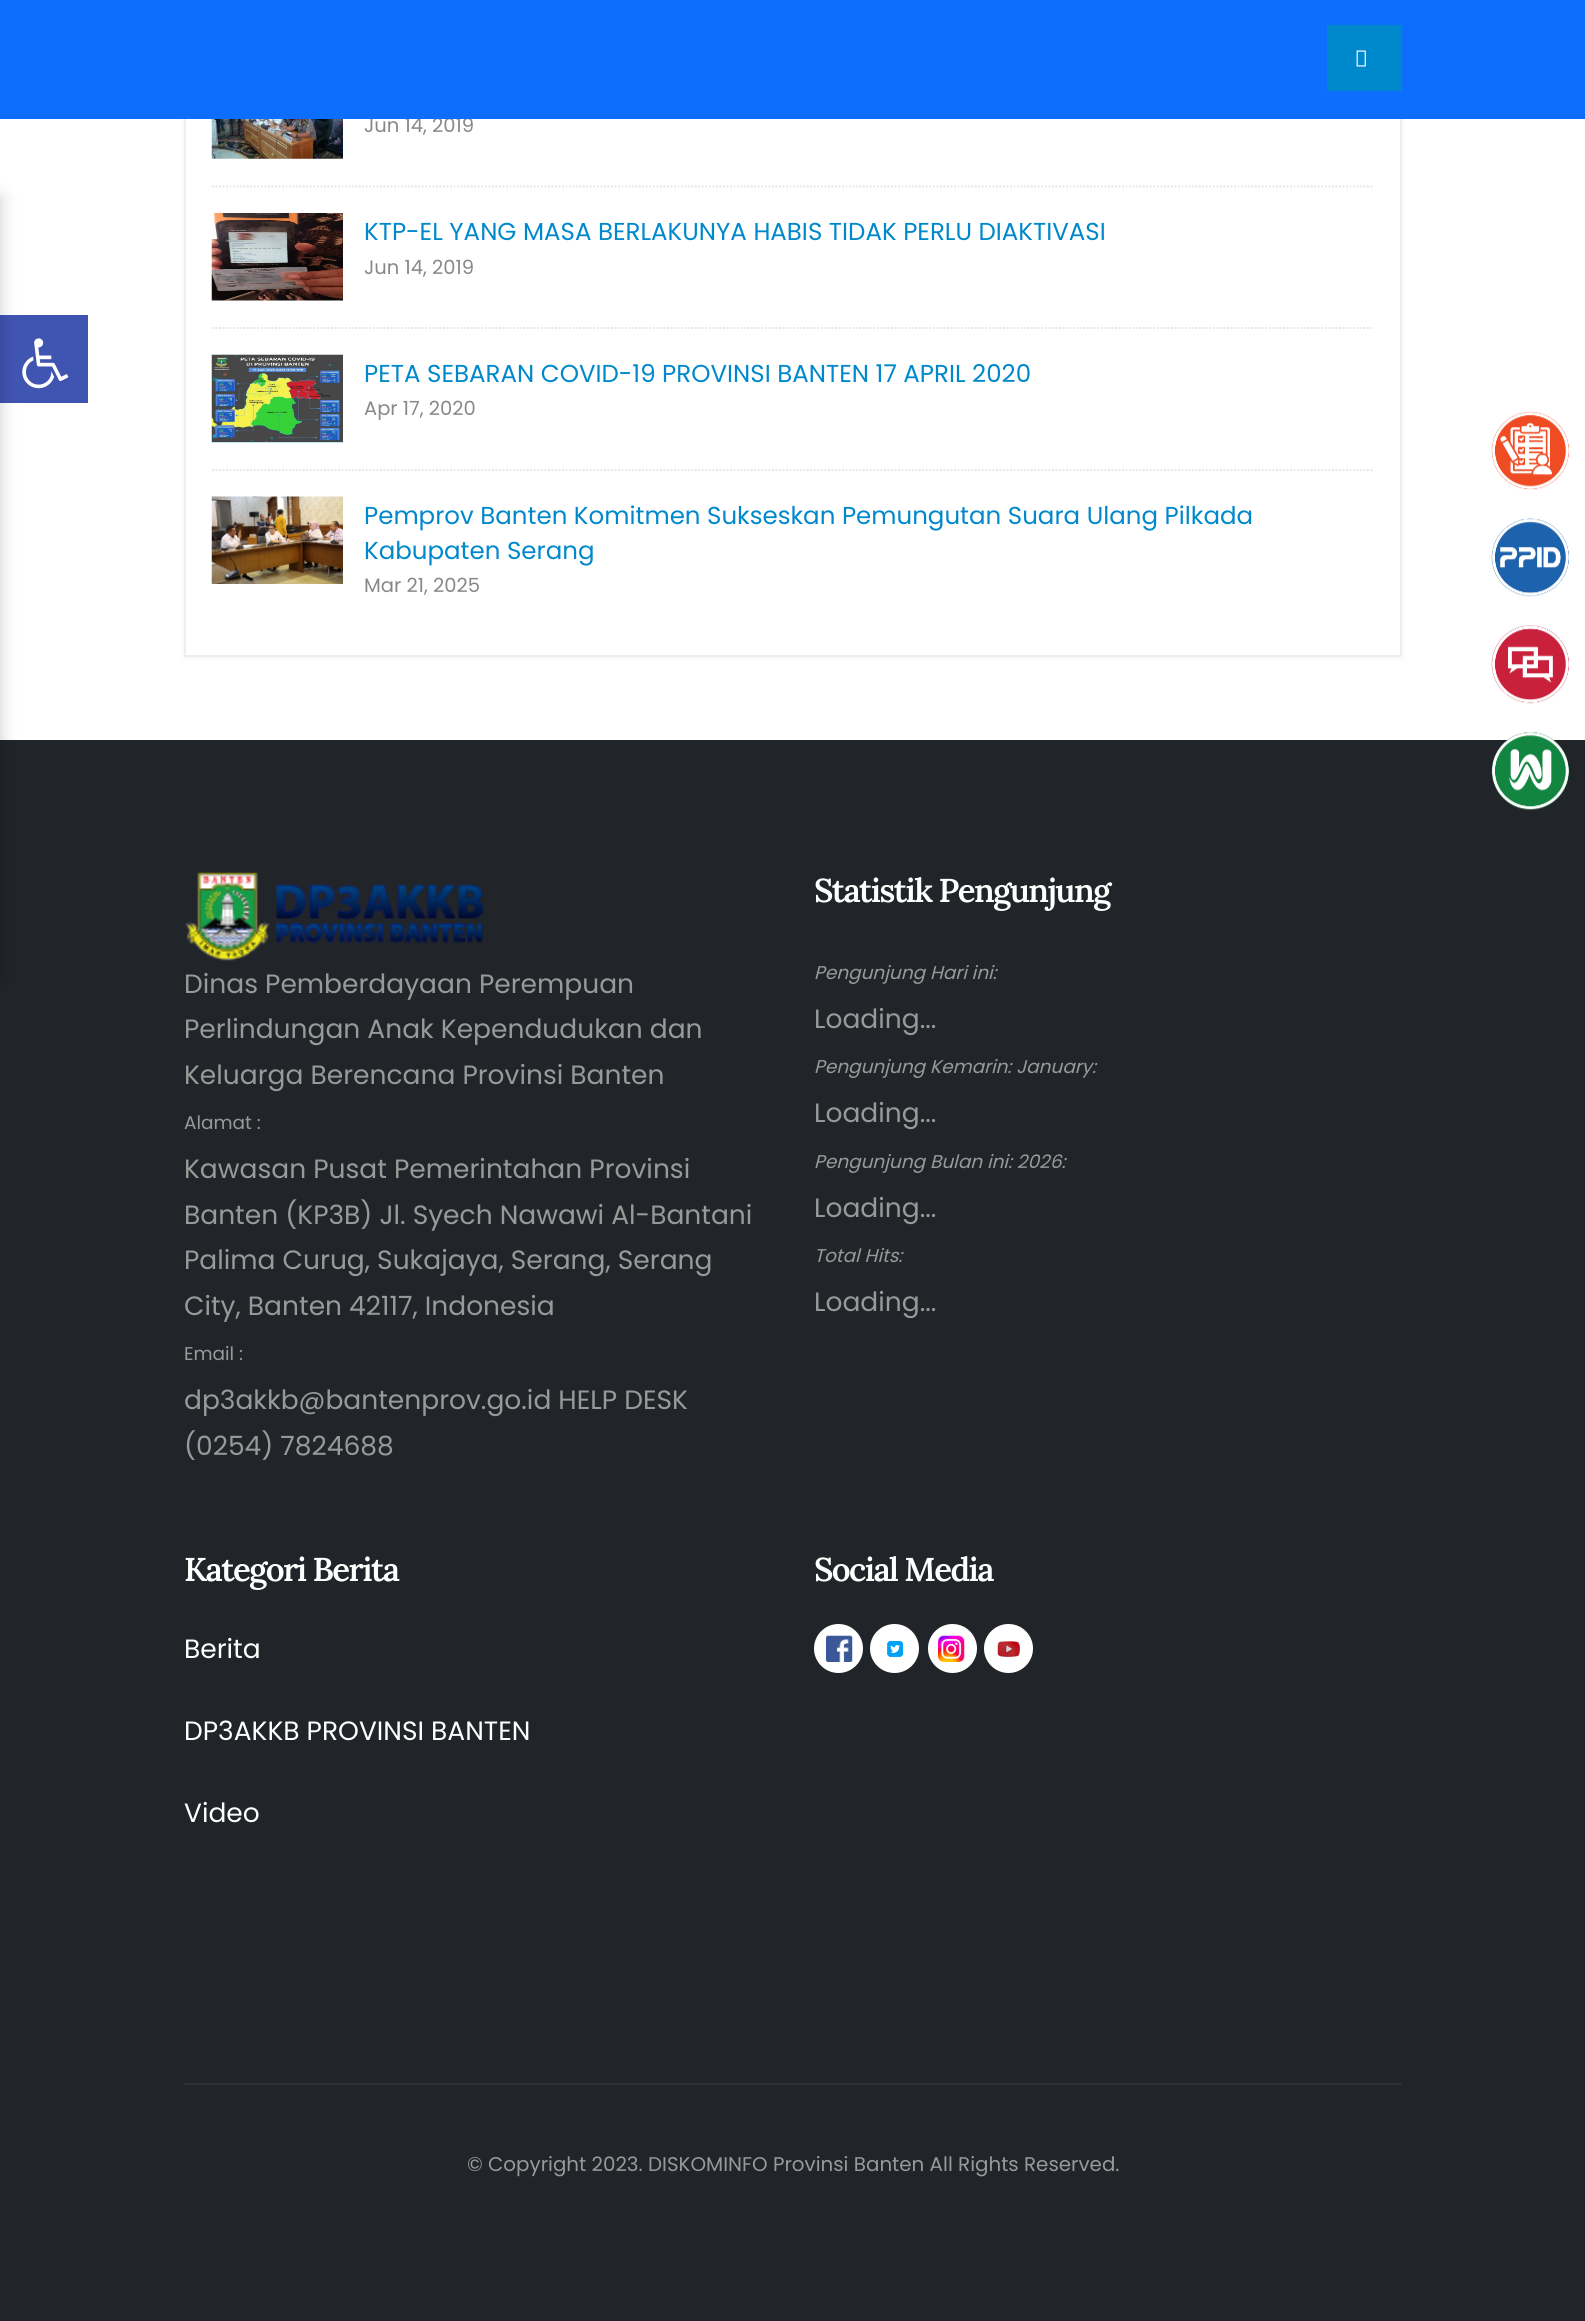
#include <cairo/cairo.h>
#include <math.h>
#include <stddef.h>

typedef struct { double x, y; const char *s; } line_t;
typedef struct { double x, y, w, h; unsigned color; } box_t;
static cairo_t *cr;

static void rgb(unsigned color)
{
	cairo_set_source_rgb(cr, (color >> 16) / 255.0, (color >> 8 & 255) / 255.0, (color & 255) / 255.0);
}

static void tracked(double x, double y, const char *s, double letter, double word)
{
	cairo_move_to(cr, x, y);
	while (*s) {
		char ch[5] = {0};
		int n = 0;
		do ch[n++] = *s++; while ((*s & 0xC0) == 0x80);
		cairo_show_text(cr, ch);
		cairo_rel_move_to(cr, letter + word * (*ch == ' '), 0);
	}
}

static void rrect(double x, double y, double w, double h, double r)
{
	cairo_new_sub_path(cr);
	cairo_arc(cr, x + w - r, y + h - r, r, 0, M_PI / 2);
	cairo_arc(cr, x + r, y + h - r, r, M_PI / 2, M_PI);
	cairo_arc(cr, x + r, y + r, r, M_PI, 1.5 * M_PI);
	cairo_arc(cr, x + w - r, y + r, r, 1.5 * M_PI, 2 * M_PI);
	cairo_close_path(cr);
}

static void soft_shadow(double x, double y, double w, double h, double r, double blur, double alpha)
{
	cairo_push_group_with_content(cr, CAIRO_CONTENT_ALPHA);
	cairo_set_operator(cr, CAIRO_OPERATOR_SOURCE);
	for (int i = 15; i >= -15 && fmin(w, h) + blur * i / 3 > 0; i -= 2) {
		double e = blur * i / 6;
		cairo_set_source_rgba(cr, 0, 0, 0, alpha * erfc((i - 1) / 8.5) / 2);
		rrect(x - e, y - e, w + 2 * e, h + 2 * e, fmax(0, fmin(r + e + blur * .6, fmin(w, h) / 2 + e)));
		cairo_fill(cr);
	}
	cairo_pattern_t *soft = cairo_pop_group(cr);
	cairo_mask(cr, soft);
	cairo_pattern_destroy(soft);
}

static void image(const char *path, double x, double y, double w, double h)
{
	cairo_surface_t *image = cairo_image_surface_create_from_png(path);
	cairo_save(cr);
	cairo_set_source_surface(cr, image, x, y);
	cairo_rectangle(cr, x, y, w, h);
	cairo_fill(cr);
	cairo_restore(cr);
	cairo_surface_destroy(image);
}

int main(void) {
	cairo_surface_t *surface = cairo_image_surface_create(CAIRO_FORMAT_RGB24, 1585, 2321);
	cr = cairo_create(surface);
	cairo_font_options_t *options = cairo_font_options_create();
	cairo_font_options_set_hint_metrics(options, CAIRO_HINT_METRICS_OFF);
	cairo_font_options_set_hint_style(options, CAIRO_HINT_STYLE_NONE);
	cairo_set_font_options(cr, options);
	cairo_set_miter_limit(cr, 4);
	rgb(0xffffff);
	cairo_paint(cr);
	rgb(0x4054b2);
	cairo_rectangle(cr, 0, 315, 88, 88);
	cairo_fill(cr);
	rgb(0x212529);
	cairo_rectangle(cr, 0, 740, 1585, 1581);
	cairo_fill(cr);
	rgb(0x000000);
	soft_shadow(-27, 198, 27, 784, 0, 9, 0.2);
	image("img/1.png", 22, 338, 47, 51);
	soft_shadow(184, 21, 1218, 637, 0, 4.5, 0.04);
	{
		static const box_t items[] = {
			{186, 119, 1214, 536, 0xffffff},
			{1400, 119, 2, 537, 0xeeeeee},
			{184, 655, 1218, 2, 0xeeeeee},
			{184, 119, 2, 537, 0xeeeeee},
		};
		for (size_t i = 0; i < sizeof items / sizeof *items; i++) {
			rgb(items[i].color);
			cairo_rectangle(cr, items[i].x, items[i].y, items[i].w, items[i].h);
			cairo_fill(cr);
		}
	}
	cairo_new_path(cr);
	cairo_move_to(cr, 212, 186.5);
	cairo_line_to(cr, 1374, 186.5);
	rgb(0xe2e2e2);
	cairo_set_line_width(cr, 1.8);
	cairo_set_dash(cr, (double[]){1.75, 1.75}, 2, 0);
	cairo_stroke(cr);
	image("img/3.png", 211, 119, 132, 40);
	cairo_new_path(cr);
	cairo_move_to(cr, 212, 328);
	cairo_line_to(cr, 1374, 328);
	cairo_stroke(cr);
	image("img/4.png", 211, 213, 132, 88);
	cairo_new_path(cr);
	cairo_move_to(cr, 212, 470);
	cairo_line_to(cr, 1374, 470);
	cairo_stroke(cr);
	image("img/5.png", 211, 354, 132, 89);
	image("img/6.png", 211, 496, 132, 88);
	image("img/7.png", 185, 872, 299, 89);
	rgb(0xffffff);
	cairo_arc(cr, 838.5, 1648.5, 24.5, 0, 2 * M_PI);
	cairo_fill(cr);
	image("img/8.png", 826, 1635, 27, 27);
	cairo_arc(cr, 894.5, 1648.5, 24.5, 0, 2 * M_PI);
	cairo_fill(cr);
	image("img/9.png", 887, 1640, 17, 17);
	cairo_arc(cr, 952.5, 1648.5, 24.5, 0, 2 * M_PI);
	cairo_fill(cr);
	image("img/10.png", 938, 1635, 27, 27);
	cairo_arc(cr, 1008.5, 1648.5, 24.5, 0, 2 * M_PI);
	cairo_fill(cr);
	image("img/11.png", 997, 1641, 23, 16);
	rgb(0x2c3034);
	cairo_rectangle(cr, 184, 2083, 1218, 2);
	cairo_fill(cr);
	image("img/12.png", 1491, 411, 78, 79);
	image("img/13.png", 1491, 518, 78, 79);
	image("img/14.png", 1491, 625, 78, 79);
	image("img/15.png", 1491, 732, 78, 79);
	cairo_select_font_face(cr, "Poppins", CAIRO_FONT_SLANT_NORMAL, CAIRO_FONT_WEIGHT_NORMAL);
	cairo_set_font_size(cr, 19.5);
	rgb(0x888888);
	cairo_move_to(cr, 364, 132);
	cairo_show_text(cr, "Jun 14, 2019");
	rgb(0x0d6efd);
	cairo_rectangle(cr, 0, 0, 1585, 119);
	cairo_fill(cr);
	rgb(0x0088cc);
	cairo_rectangle(cr, 1327, 25, 75, 66);
	cairo_fill(cr);
	image("img/2.png", 1356, 50, 10, 17);
	cairo_set_font_size(cr, 24.5);
	cairo_move_to(cr, 364, 240);
	cairo_show_text(cr, "KTP-EL YANG MASA BERLAKUNYA HABIS TIDAK PERLU DIAKTIVASI");
	cairo_set_font_size(cr, 19.5);
	rgb(0x888888);
	cairo_move_to(cr, 364, 274);
	cairo_show_text(cr, "Jun 14, 2019");
	cairo_set_font_size(cr, 24.5);
	rgb(0x0088cc);
	cairo_move_to(cr, 364, 382);
	cairo_show_text(cr, "PETA SEBARAN COVID-19 PROVINSI BANTEN 17 APRIL 2020");
	cairo_set_font_size(cr, 19.5);
	rgb(0x888888);
	cairo_move_to(cr, 364, 415);
	cairo_show_text(cr, "Apr 17, 2020");
	cairo_set_font_size(cr, 24.5);
	rgb(0x0088cc);
	cairo_move_to(cr, 364, 524);
	cairo_show_text(cr, "Pemprov Banten Komitmen Sukseskan Pemungutan Suara Ulang Pilkada");
	cairo_move_to(cr, 364, 559);
	cairo_show_text(cr, "Kabupaten Serang");
	cairo_set_font_size(cr, 19.5);
	rgb(0x888888);
	cairo_move_to(cr, 364, 592);
	cairo_show_text(cr, "Mar 21, 2025");
	cairo_set_font_size(cr, 26.5);
	rgb(0x999999);
	{
		static const line_t items[] = {
			{184, 993, "Dinas Pemberdayaan Perempuan"},
			{184, 1038, "Perlindungan Anak Kependudukan dan"},
			{184, 1084, "Keluarga Berencana Provinsi Banten"},
		};
		for (size_t i = 0; i < sizeof items / sizeof *items; i++) {
			cairo_move_to(cr, items[i].x, items[i].y);
			cairo_show_text(cr, items[i].s);
		}
	}
	cairo_set_font_size(cr, 18.5);
	cairo_move_to(cr, 184, 1129);
	cairo_show_text(cr, "Alamat :");
	cairo_set_font_size(cr, 26.5);
	{
		static const line_t items[] = {
			{184, 1178, "Kawasan Pusat Pemerintahan Provinsi"},
			{184, 1224, "Banten (KP3B) Jl. Syech Nawawi Al-Bantani"},
			{184, 1269, "Palima Curug, Sukajaya, Serang, Serang"},
			{184, 1315, "City, Banten 42117, Indonesia"},
		};
		for (size_t i = 0; i < sizeof items / sizeof *items; i++) {
			cairo_move_to(cr, items[i].x, items[i].y);
			cairo_show_text(cr, items[i].s);
		}
	}
	cairo_set_font_size(cr, 18.5);
	cairo_move_to(cr, 184, 1360);
	cairo_show_text(cr, "Email :");
	cairo_set_font_size(cr, 26.5);
	cairo_move_to(cr, 184, 1409);
	cairo_show_text(cr, "dp3akkb@bantenprov.go.id HELP DESK");
	cairo_move_to(cr, 184, 1455);
	cairo_show_text(cr, "(0254) 7824688");
	cairo_select_font_face(cr, "Lora SemiBold", CAIRO_FONT_SLANT_NORMAL, CAIRO_FONT_WEIGHT_NORMAL);
	cairo_set_font_size(cr, 33);
	rgb(0xffffff);
	tracked(814, 902, "Statistik Pengunjung", -1.6, 0);
	cairo_select_font_face(cr, "Poppins", CAIRO_FONT_SLANT_ITALIC, CAIRO_FONT_WEIGHT_NORMAL);
	cairo_set_font_size(cr, 18.5);
	rgb(0x999999);
	cairo_move_to(cr, 814, 979);
	cairo_show_text(cr, "Pengunjung Hari ini:");
	cairo_select_font_face(cr, "Poppins", CAIRO_FONT_SLANT_NORMAL, CAIRO_FONT_WEIGHT_NORMAL);
	cairo_set_font_size(cr, 26.5);
	cairo_move_to(cr, 814, 1028);
	cairo_show_text(cr, "Loading...");
	cairo_select_font_face(cr, "Poppins", CAIRO_FONT_SLANT_ITALIC, CAIRO_FONT_WEIGHT_NORMAL);
	cairo_set_font_size(cr, 18.5);
	cairo_move_to(cr, 814, 1073);
	cairo_show_text(cr, "Pengunjung Kemarin: January:");
	cairo_select_font_face(cr, "Poppins", CAIRO_FONT_SLANT_NORMAL, CAIRO_FONT_WEIGHT_NORMAL);
	cairo_set_font_size(cr, 26.5);
	cairo_move_to(cr, 814, 1122);
	cairo_show_text(cr, "Loading...");
	cairo_select_font_face(cr, "Poppins", CAIRO_FONT_SLANT_ITALIC, CAIRO_FONT_WEIGHT_NORMAL);
	cairo_set_font_size(cr, 18.5);
	cairo_move_to(cr, 814, 1168);
	cairo_show_text(cr, "Pengunjung Bulan ini: 2026:");
	cairo_select_font_face(cr, "Poppins", CAIRO_FONT_SLANT_NORMAL, CAIRO_FONT_WEIGHT_NORMAL);
	cairo_set_font_size(cr, 26.5);
	cairo_move_to(cr, 814, 1217);
	cairo_show_text(cr, "Loading...");
	cairo_select_font_face(cr, "Poppins", CAIRO_FONT_SLANT_ITALIC, CAIRO_FONT_WEIGHT_NORMAL);
	cairo_set_font_size(cr, 18.5);
	cairo_move_to(cr, 814, 1262);
	cairo_show_text(cr, "Total Hits:");
	cairo_select_font_face(cr, "Poppins", CAIRO_FONT_SLANT_NORMAL, CAIRO_FONT_WEIGHT_NORMAL);
	cairo_set_font_size(cr, 26.5);
	cairo_move_to(cr, 814, 1311);
	cairo_show_text(cr, "Loading...");
	cairo_select_font_face(cr, "Lora SemiBold", CAIRO_FONT_SLANT_NORMAL, CAIRO_FONT_WEIGHT_NORMAL);
	cairo_set_font_size(cr, 33);
	rgb(0xffffff);
	tracked(184, 1581, "Kategori Berita", -1.6, 0);
	cairo_select_font_face(cr, "Poppins", CAIRO_FONT_SLANT_NORMAL, CAIRO_FONT_WEIGHT_NORMAL);
	cairo_set_font_size(cr, 26.5);
	{
		static const line_t items[] = {
			{184, 1658, "Berita"},
			{184, 1740, "DP3AKKB PROVINSI BANTEN"},
			{184, 1822, "Video"},
		};
		for (size_t i = 0; i < sizeof items / sizeof *items; i++) {
			cairo_move_to(cr, items[i].x, items[i].y);
			cairo_show_text(cr, items[i].s);
		}
	}
	cairo_select_font_face(cr, "Lora SemiBold", CAIRO_FONT_SLANT_NORMAL, CAIRO_FONT_WEIGHT_NORMAL);
	cairo_set_font_size(cr, 33);
	tracked(814, 1581, "Social Media", -1.6, 0);
	cairo_select_font_face(cr, "Poppins", CAIRO_FONT_SLANT_NORMAL, CAIRO_FONT_WEIGHT_NORMAL);
	cairo_set_font_size(cr, 19.85);
	rgb(0x999999);
	cairo_move_to(cr, 467, 2171);
	cairo_show_text(cr, "© Copyright 2023. DISKOMINFO Provinsi Banten All Rights Reserved.");
	cairo_surface_write_to_png(surface, "page.png");
	cairo_font_options_destroy(options);
	cairo_destroy(cr);
	cairo_surface_destroy(surface);
	return 0;
}
